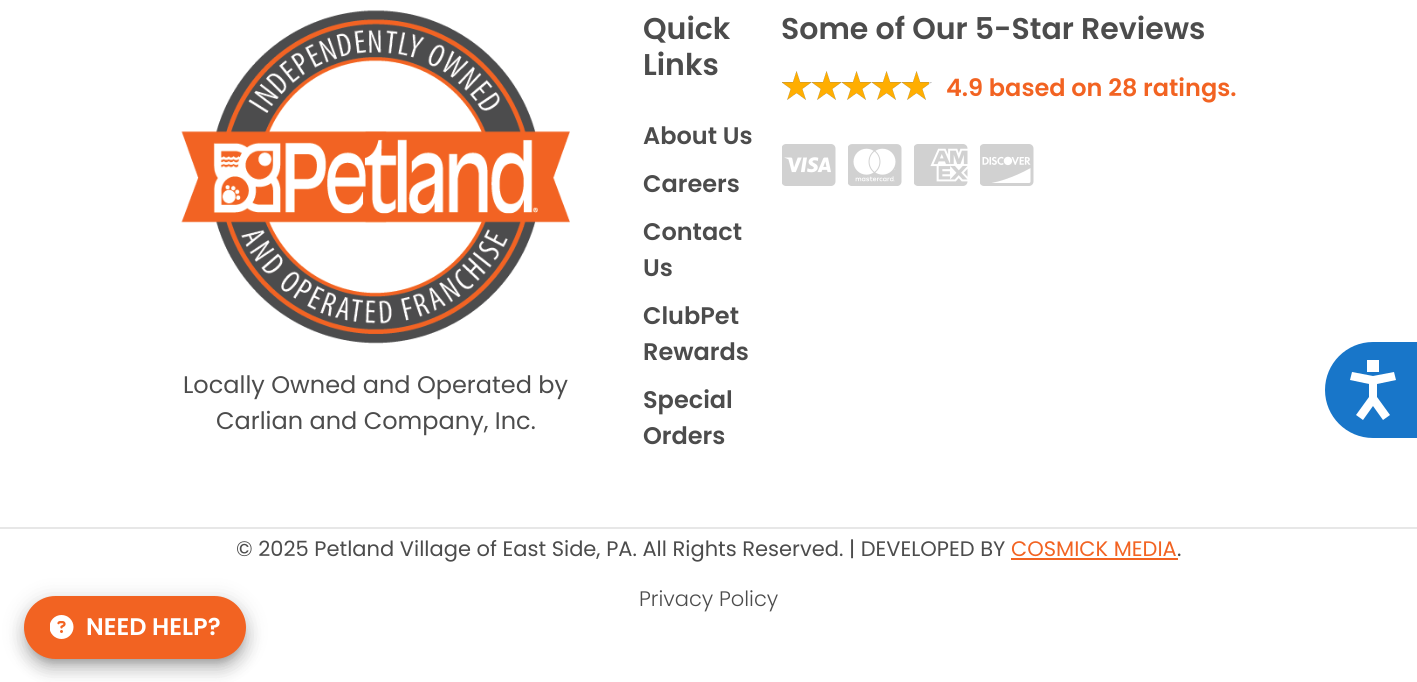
#include <cairo/cairo.h>
#include <math.h>
#include <stddef.h>

typedef struct { double x, y; const char *s; } line_t;
static cairo_t *cr;

static void rgb(unsigned color)
{
	cairo_set_source_rgb(cr, (color >> 16) / 255.0, (color >> 8 & 255) / 255.0, (color & 255) / 255.0);
}

static void rrect(double x, double y, double w, double h, double r)
{
	cairo_new_sub_path(cr);
	cairo_arc(cr, x + w - r, y + h - r, r, 0, M_PI / 2);
	cairo_arc(cr, x + r, y + h - r, r, M_PI / 2, M_PI);
	cairo_arc(cr, x + r, y + r, r, M_PI, 1.5 * M_PI);
	cairo_arc(cr, x + w - r, y + r, r, 1.5 * M_PI, 2 * M_PI);
	cairo_close_path(cr);
}

static void soft_shadow(double x, double y, double w, double h, double r, double blur, double alpha)
{
	cairo_push_group_with_content(cr, CAIRO_CONTENT_ALPHA);
	cairo_set_operator(cr, CAIRO_OPERATOR_SOURCE);
	for (int i = 15; i >= -15 && fmin(w, h) + blur * i / 3 > 0; i -= 2) {
		double e = blur * i / 6;
		cairo_set_source_rgba(cr, 0, 0, 0, alpha * erfc((i - 1) / 8.5) / 2);
		rrect(x - e, y - e, w + 2 * e, h + 2 * e, fmax(0, fmin(r + e + blur * .6, fmin(w, h) / 2 + e)));
		cairo_fill(cr);
	}
	cairo_pattern_t *soft = cairo_pop_group(cr);
	cairo_mask(cr, soft);
	cairo_pattern_destroy(soft);
}

static void image(const char *path, double x, double y, double w, double h)
{
	cairo_surface_t *image = cairo_image_surface_create_from_png(path);
	cairo_save(cr);
	cairo_set_source_surface(cr, image, x, y);
	cairo_rectangle(cr, x, y, w, h);
	cairo_fill(cr);
	cairo_restore(cr);
	cairo_surface_destroy(image);
}

int main(void) {
	cairo_surface_t *surface = cairo_image_surface_create(CAIRO_FORMAT_RGB24, 1417, 682);
	cr = cairo_create(surface);
	cairo_font_options_t *options = cairo_font_options_create();
	cairo_font_options_set_hint_metrics(options, CAIRO_HINT_METRICS_OFF);
	cairo_font_options_set_hint_style(options, CAIRO_HINT_STYLE_NONE);
	cairo_set_font_options(cr, options);
	cairo_set_miter_limit(cr, 4);
	rgb(0xffffff);
	cairo_paint(cr);
	image("img/1.png", 181, 10, 389, 334);
	image("img/2.png", 782, 71, 30, 29);
	image("img/2.png", 812, 71, 30, 29);
	image("img/2.png", 842, 71, 30, 29);
	image("img/2.png", 872, 71, 30, 29);
	image("img/3.png", 902, 71, 30, 29);
	image("img/4.png", 782, 144, 54, 42);
	image("img/5.png", 848, 144, 54, 42);
	image("img/6.png", 914, 144, 54, 42);
	image("img/7.png", 980, 144, 54, 42);
	rgb(0xe7e7e7);
	cairo_rectangle(cr, 0, 527, 1417, 2);
	cairo_fill(cr);
	rgb(0xf26322);
	cairo_rectangle(cr, 1011, 558, 167, 2);
	cairo_fill(cr);
	rgb(0x1876c9);
	cairo_new_path(cr);
	cairo_move_to(cr, 1373, 342);
	cairo_line_to(cr, 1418, 342);
	cairo_line_to(cr, 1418, 438);
	cairo_line_to(cr, 1373, 438);
	cairo_curve_to(cr, 1346.5, 438, 1325, 416.5, 1325, 390);
	cairo_curve_to(cr, 1325, 363.5, 1346.5, 342, 1373, 342);
	cairo_close_path(cr);
	cairo_fill(cr);
	rgb(0xffffff);
	cairo_new_path(cr);
	cairo_move_to(cr, 1369, 384);
	cairo_line_to(cr, 1350, 380);
	cairo_line_to(cr, 1352, 372);
	cairo_line_to(cr, 1373, 376);
	cairo_line_to(cr, 1394, 372);
	cairo_line_to(cr, 1396, 380);
	cairo_line_to(cr, 1377, 384);
	cairo_line_to(cr, 1377, 397);
	cairo_line_to(cr, 1390, 415);
	cairo_line_to(cr, 1383, 420);
	cairo_line_to(cr, 1373, 406);
	cairo_line_to(cr, 1363, 420);
	cairo_line_to(cr, 1356, 415);
	cairo_line_to(cr, 1369, 397);
	cairo_close_path(cr);
	cairo_move_to(cr, 1367, 360);
	cairo_line_to(cr, 1379, 360);
	cairo_line_to(cr, 1379, 372);
	cairo_line_to(cr, 1367, 372);
	cairo_close_path(cr);
	cairo_fill(cr);
	rgb(0x000000);
	soft_shadow(21, 597, 228, 69, 34.5, 10.5, 0.12);
	soft_shadow(23, 606, 225, 66, 33, 7.5, 0.14);
	soft_shadow(29, 608, 213, 54, 27, 4, 0.2);
	rgb(0xf26322);
	rrect(25, 597, 220, 61, 30.5);
	cairo_fill_preserve(cr);
	cairo_stroke(cr);
	image("img/8.png", 50, 615, 24, 24);
	cairo_select_font_face(cr, "Poppins", CAIRO_FONT_SLANT_NORMAL, CAIRO_FONT_WEIGHT_NORMAL);
	cairo_set_font_size(cr, 24);
	rgb(0x4c4c4c);
	cairo_move_to(cr, 183, 393);
	cairo_show_text(cr, "Locally Owned and Operated by");
	cairo_move_to(cr, 216, 429);
	cairo_show_text(cr, "Carlian and Company, Inc.");
	cairo_select_font_face(cr, "Poppins SemiBold", CAIRO_FONT_SLANT_NORMAL, CAIRO_FONT_WEIGHT_NORMAL);
	cairo_set_font_size(cr, 30);
	cairo_move_to(cr, 643, 39);
	cairo_show_text(cr, "Quick");
	cairo_move_to(cr, 643, 75);
	cairo_show_text(cr, "Links");
	cairo_set_font_size(cr, 24);
	{
		static const line_t items[] = {
			{643, 144, "About Us"},
			{643, 192, "Careers"},
			{643, 240, "Contact"},
			{643, 276, "Us"},
			{643, 324, "ClubPet"},
			{643, 360, "Rewards"},
			{643, 408, "Special"},
			{643, 444, "Orders"},
		};
		for (size_t i = 0; i < sizeof items / sizeof *items; i++) {
			cairo_move_to(cr, items[i].x, items[i].y);
			cairo_show_text(cr, items[i].s);
		}
	}
	cairo_set_font_size(cr, 30);
	cairo_move_to(cr, 781, 39);
	cairo_show_text(cr, "Some of Our 5-Star Reviews");
	cairo_set_font_size(cr, 24);
	rgb(0xf26322);
	cairo_move_to(cr, 946, 96);
	cairo_show_text(cr, "4.9 based on 28 ratings.");
	cairo_select_font_face(cr, "Poppins", CAIRO_FONT_SLANT_NORMAL, CAIRO_FONT_WEIGHT_NORMAL);
	cairo_set_font_size(cr, 21);
	rgb(0x4c4c4c);
	cairo_move_to(cr, 236, 556);
	cairo_show_text(cr, "© 2025 Petland Village of East Side, PA. All Rights Reserved. | DEVELOPED BY");
	rgb(0xf26322);
	cairo_move_to(cr, 1011, 556);
	cairo_show_text(cr, "COSMICK MEDIA");
	rgb(0x4c4c4c);
	cairo_move_to(cr, 1177, 556);
	cairo_show_text(cr, ".");
	cairo_select_font_face(cr, "Poppins Light", CAIRO_FONT_SLANT_NORMAL, CAIRO_FONT_WEIGHT_NORMAL);
	cairo_move_to(cr, 639, 606);
	cairo_show_text(cr, "Privacy Policy");
	cairo_select_font_face(cr, "Poppins SemiBold", CAIRO_FONT_SLANT_NORMAL, CAIRO_FONT_WEIGHT_NORMAL);
	cairo_set_font_size(cr, 24);
	rgb(0xffffff);
	cairo_move_to(cr, 86, 635);
	cairo_show_text(cr, "NEED HELP?");
	cairo_surface_write_to_png(surface, "page.png");
	cairo_font_options_destroy(options);
	cairo_destroy(cr);
	cairo_surface_destroy(surface);
	return 0;
}
